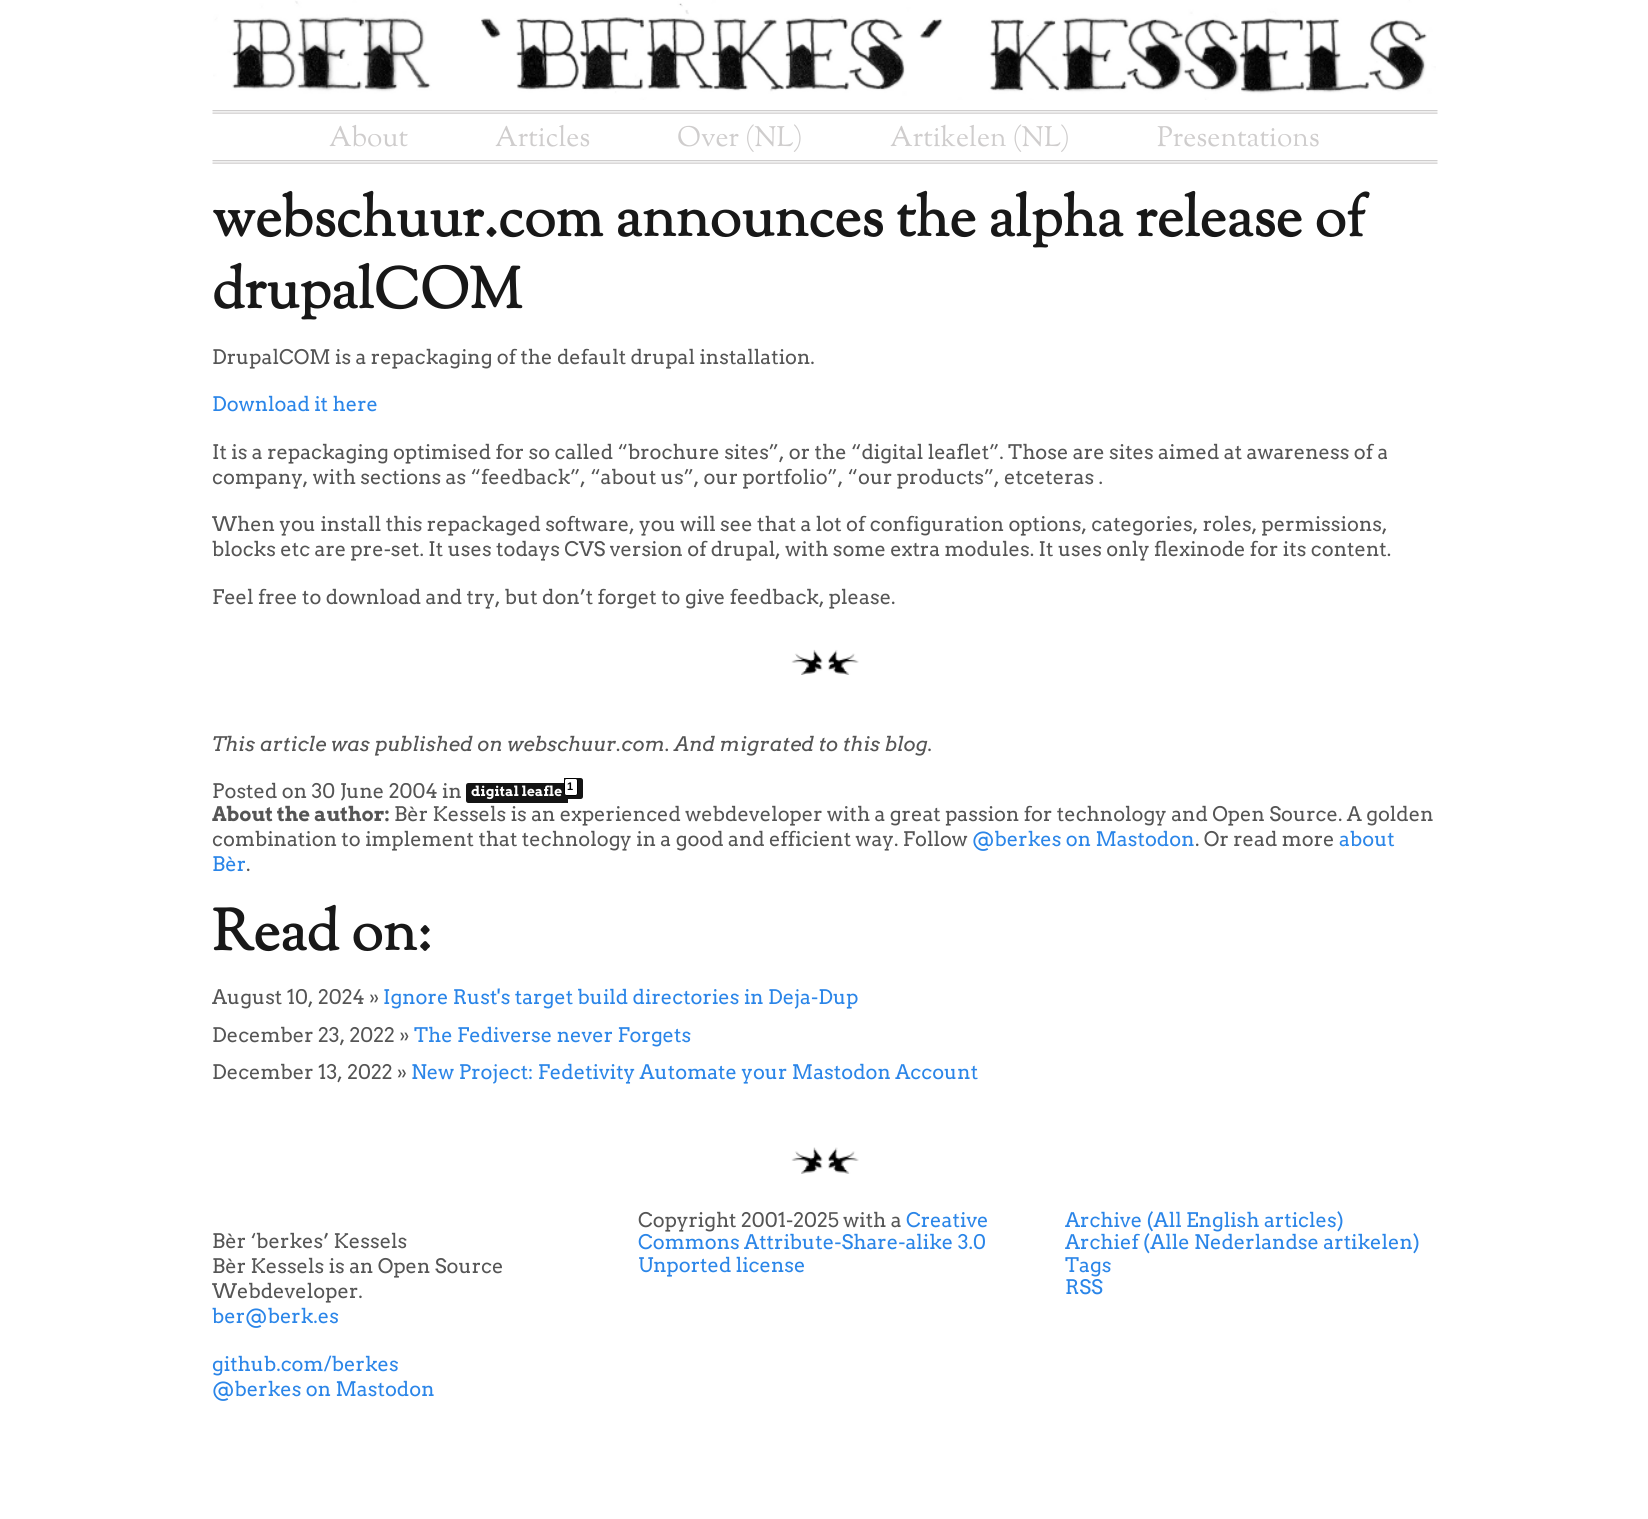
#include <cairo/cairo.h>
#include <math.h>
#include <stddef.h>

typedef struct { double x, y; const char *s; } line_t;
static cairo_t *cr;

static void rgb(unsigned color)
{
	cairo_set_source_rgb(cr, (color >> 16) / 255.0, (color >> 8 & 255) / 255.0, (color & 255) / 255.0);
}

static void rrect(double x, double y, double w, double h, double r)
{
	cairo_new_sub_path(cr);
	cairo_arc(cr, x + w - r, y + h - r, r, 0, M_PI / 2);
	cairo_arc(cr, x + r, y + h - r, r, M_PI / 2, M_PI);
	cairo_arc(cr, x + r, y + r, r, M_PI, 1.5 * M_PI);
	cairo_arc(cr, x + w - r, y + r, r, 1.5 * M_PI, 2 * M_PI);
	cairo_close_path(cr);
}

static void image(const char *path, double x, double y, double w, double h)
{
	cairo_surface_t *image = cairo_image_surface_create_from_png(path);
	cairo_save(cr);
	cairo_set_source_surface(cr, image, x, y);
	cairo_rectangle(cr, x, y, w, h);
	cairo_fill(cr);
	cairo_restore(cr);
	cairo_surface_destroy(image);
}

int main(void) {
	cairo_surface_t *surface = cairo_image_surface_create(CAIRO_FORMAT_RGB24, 1648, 1519);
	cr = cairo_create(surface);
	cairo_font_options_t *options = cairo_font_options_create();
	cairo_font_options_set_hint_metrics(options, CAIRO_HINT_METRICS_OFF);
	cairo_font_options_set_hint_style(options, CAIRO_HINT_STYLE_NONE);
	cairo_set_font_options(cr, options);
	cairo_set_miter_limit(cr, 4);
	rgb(0xffffff);
	cairo_paint(cr);
	image("img/1.png", 213, 0, 1223, 100);
	image("img/2.png", 212, 110, 1226, 4);
	image("img/2.png", 212, 160, 1226, 4);
	image("img/3.png", 791, 649, 68, 26);
	rgb(0x141414);
	cairo_new_path(cr);
	cairo_move_to(cr, 468.5, 783);
	cairo_line_to(cr, 568, 783);
	cairo_line_to(cr, 568, 803);
	cairo_line_to(cr, 468.5, 803);
	cairo_curve_to(cr, 467, 803, 466, 802, 466, 800.5);
	cairo_line_to(cr, 466, 785.5);
	cairo_curve_to(cr, 466, 784, 467, 783, 468.5, 783);
	cairo_close_path(cr);
	cairo_fill(cr);
	cairo_new_path(cr);
	cairo_move_to(cr, 564, 778);
	cairo_line_to(cr, 580.5, 778);
	cairo_curve_to(cr, 582, 778, 583, 779, 583, 780.5);
	cairo_line_to(cr, 583, 796.5);
	cairo_curve_to(cr, 583, 798, 582, 799, 580.5, 799);
	cairo_line_to(cr, 564, 799);
	cairo_close_path(cr);
	cairo_fill(cr);
	rgb(0xffffff);
	rrect(564.5, 778.5, 13, 17, 2);
	cairo_fill_preserve(cr);
	rgb(0x000000);
	cairo_set_line_width(cr, 1);
	cairo_stroke(cr);
	image("img/4.png", 791, 1147, 68, 27);
	cairo_select_font_face(cr, "OFL Sorts Mill Goudy TT Medium", CAIRO_FONT_SLANT_NORMAL, CAIRO_FONT_WEIGHT_NORMAL);
	cairo_set_font_size(cr, 28);
	rgb(0xcfcdcd);
	{
		static const line_t items[] = {
			{329, 146, "About"},
			{495, 146, "Articles"},
			{677, 146, "Over (NL)"},
			{890, 146, "Artikelen (NL)"},
			{1157, 146, "Presentations"},
		};
		for (size_t i = 0; i < sizeof items / sizeof *items; i++) {
			cairo_move_to(cr, items[i].x, items[i].y);
			cairo_show_text(cr, items[i].s);
		}
	}
	cairo_select_font_face(cr, "OFL Sorts Mill Goudy TT", CAIRO_FONT_SLANT_NORMAL, CAIRO_FONT_WEIGHT_BOLD);
	cairo_set_font_size(cr, 57.5);
	rgb(0x181818);
	cairo_move_to(cr, 212, 236);
	cairo_show_text(cr, "webschuur.com announces the alpha release of");
	cairo_move_to(cr, 212, 308);
	cairo_show_text(cr, "drupalCOM");
	cairo_select_font_face(cr, "Arvo", CAIRO_FONT_SLANT_NORMAL, CAIRO_FONT_WEIGHT_NORMAL);
	cairo_set_font_size(cr, 20);
	rgb(0x555555);
	cairo_move_to(cr, 212, 364);
	cairo_show_text(cr, "DrupalCOM is a repackaging of the default drupal installation.");
	rgb(0x2a85e8);
	cairo_move_to(cr, 212, 411);
	cairo_show_text(cr, "Download it here");
	rgb(0x555555);
	{
		static const line_t items[] = {
			{212, 459, "It is a repackaging optimised for so called “brochure sites”, or the “digital leaflet”. Those are sites aimed at awareness of a"},
			{212, 484, "company, with sections as “feedback”, “about us”, our portfolio”, “our products”, etceteras ."},
			{212, 531, "When you install this repackaged software, you will see that a lot of configuration options, categories, roles, permissions,"},
			{212, 556, "blocks etc are pre-set. It uses todays CVS version of drupal, with some extra modules. It uses only flexinode for its content."},
			{212, 604, "Feel free to download and try, but don’t forget to give feedback, please."},
		};
		for (size_t i = 0; i < sizeof items / sizeof *items; i++) {
			cairo_move_to(cr, items[i].x, items[i].y);
			cairo_show_text(cr, items[i].s);
		}
	}
	cairo_select_font_face(cr, "Arvo", CAIRO_FONT_SLANT_ITALIC, CAIRO_FONT_WEIGHT_NORMAL);
	cairo_move_to(cr, 212, 751);
	cairo_show_text(cr, "This article was published on webschuur.com. And migrated to this blog.");
	cairo_select_font_face(cr, "Arvo", CAIRO_FONT_SLANT_NORMAL, CAIRO_FONT_WEIGHT_NORMAL);
	cairo_move_to(cr, 212, 798);
	cairo_show_text(cr, "Posted on 30 June 2004 in");
	cairo_select_font_face(cr, "Arvo", CAIRO_FONT_SLANT_NORMAL, CAIRO_FONT_WEIGHT_BOLD);
	cairo_set_font_size(cr, 13.75);
	rgb(0xffffff);
	cairo_move_to(cr, 471, 796);
	cairo_show_text(cr, "digital leafle");
	cairo_select_font_face(cr, "Liberation Sans", CAIRO_FONT_SLANT_NORMAL, CAIRO_FONT_WEIGHT_BOLD);
	cairo_set_font_size(cr, 11);
	rgb(0x000000);
	cairo_move_to(cr, 567, 790);
	cairo_show_text(cr, "1");
	cairo_select_font_face(cr, "Arvo", CAIRO_FONT_SLANT_NORMAL, CAIRO_FONT_WEIGHT_BOLD);
	cairo_set_font_size(cr, 20);
	rgb(0x555555);
	cairo_move_to(cr, 212, 821);
	cairo_show_text(cr, "About the author:");
	cairo_select_font_face(cr, "Arvo", CAIRO_FONT_SLANT_NORMAL, CAIRO_FONT_WEIGHT_NORMAL);
	cairo_move_to(cr, 394, 821);
	cairo_show_text(cr, "Bèr Kessels is an experienced webdeveloper with a great passion for technology and Open Source. A golden");
	cairo_move_to(cr, 212, 846);
	cairo_show_text(cr, "combination to implement that technology in a good and efficient way. Follow");
	rgb(0x2a85e8);
	cairo_move_to(cr, 972, 846);
	cairo_show_text(cr, "@berkes on Mastodon");
	rgb(0x555555);
	cairo_move_to(cr, 1195, 846);
	cairo_show_text(cr, ". Or read more");
	rgb(0x2a85e8);
	cairo_move_to(cr, 1339, 846);
	cairo_show_text(cr, "about");
	cairo_move_to(cr, 212, 871);
	cairo_show_text(cr, "Bèr");
	rgb(0x555555);
	cairo_move_to(cr, 246, 871);
	cairo_show_text(cr, ".");
	cairo_select_font_face(cr, "OFL Sorts Mill Goudy TT", CAIRO_FONT_SLANT_NORMAL, CAIRO_FONT_WEIGHT_BOLD);
	cairo_set_font_size(cr, 57.5);
	rgb(0x181818);
	cairo_move_to(cr, 212, 950);
	cairo_show_text(cr, "Read on:");
	cairo_select_font_face(cr, "Arvo", CAIRO_FONT_SLANT_NORMAL, CAIRO_FONT_WEIGHT_NORMAL);
	cairo_set_font_size(cr, 20);
	rgb(0x555555);
	cairo_move_to(cr, 212, 1004);
	cairo_show_text(cr, "August 10, 2024 »");
	rgb(0x2a85e8);
	cairo_move_to(cr, 383, 1004);
	cairo_show_text(cr, "Ignore Rust's target build directories in Deja-Dup");
	rgb(0x555555);
	cairo_move_to(cr, 212, 1042);
	cairo_show_text(cr, "December 23, 2022 »");
	rgb(0x2a85e8);
	cairo_move_to(cr, 414, 1042);
	cairo_show_text(cr, "The Fediverse never Forgets");
	rgb(0x555555);
	cairo_move_to(cr, 212, 1079);
	cairo_show_text(cr, "December 13, 2022 »");
	rgb(0x2a85e8);
	cairo_move_to(cr, 411, 1079);
	cairo_show_text(cr, "New Project: Fedetivity Automate your Mastodon Account");
	rgb(0x555555);
	{
		static const line_t items[] = {
			{212, 1248, "Bèr ‘berkes’ Kessels"},
			{212, 1273, "Bèr Kessels is an Open Source"},
			{212, 1298, "Webdeveloper."},
		};
		for (size_t i = 0; i < sizeof items / sizeof *items; i++) {
			cairo_move_to(cr, items[i].x, items[i].y);
			cairo_show_text(cr, items[i].s);
		}
	}
	rgb(0x2a85e8);
	{
		static const line_t items[] = {
			{212, 1323, "ber@berk.es"},
			{212, 1371, "github.com/berkes"},
			{212, 1396, "@berkes on Mastodon"},
		};
		for (size_t i = 0; i < sizeof items / sizeof *items; i++) {
			cairo_move_to(cr, items[i].x, items[i].y);
			cairo_show_text(cr, items[i].s);
		}
	}
	rgb(0x555555);
	cairo_move_to(cr, 638, 1227);
	cairo_show_text(cr, "Copyright 2001-2025 with a");
	rgb(0x2a85e8);
	{
		static const line_t items[] = {
			{906, 1227, "Creative"},
			{638, 1249, "Commons Attribute-Share-alike 3.0"},
			{638, 1272, "Unported license"},
			{1065, 1227, "Archive (All English articles)"},
			{1065, 1249, "Archief (Alle Nederlandse artikelen)"},
			{1065, 1272, "Tags"},
			{1065, 1294, "RSS"},
		};
		for (size_t i = 0; i < sizeof items / sizeof *items; i++) {
			cairo_move_to(cr, items[i].x, items[i].y);
			cairo_show_text(cr, items[i].s);
		}
	}
	cairo_surface_write_to_png(surface, "page.png");
	cairo_font_options_destroy(options);
	cairo_destroy(cr);
	cairo_surface_destroy(surface);
	return 0;
}
